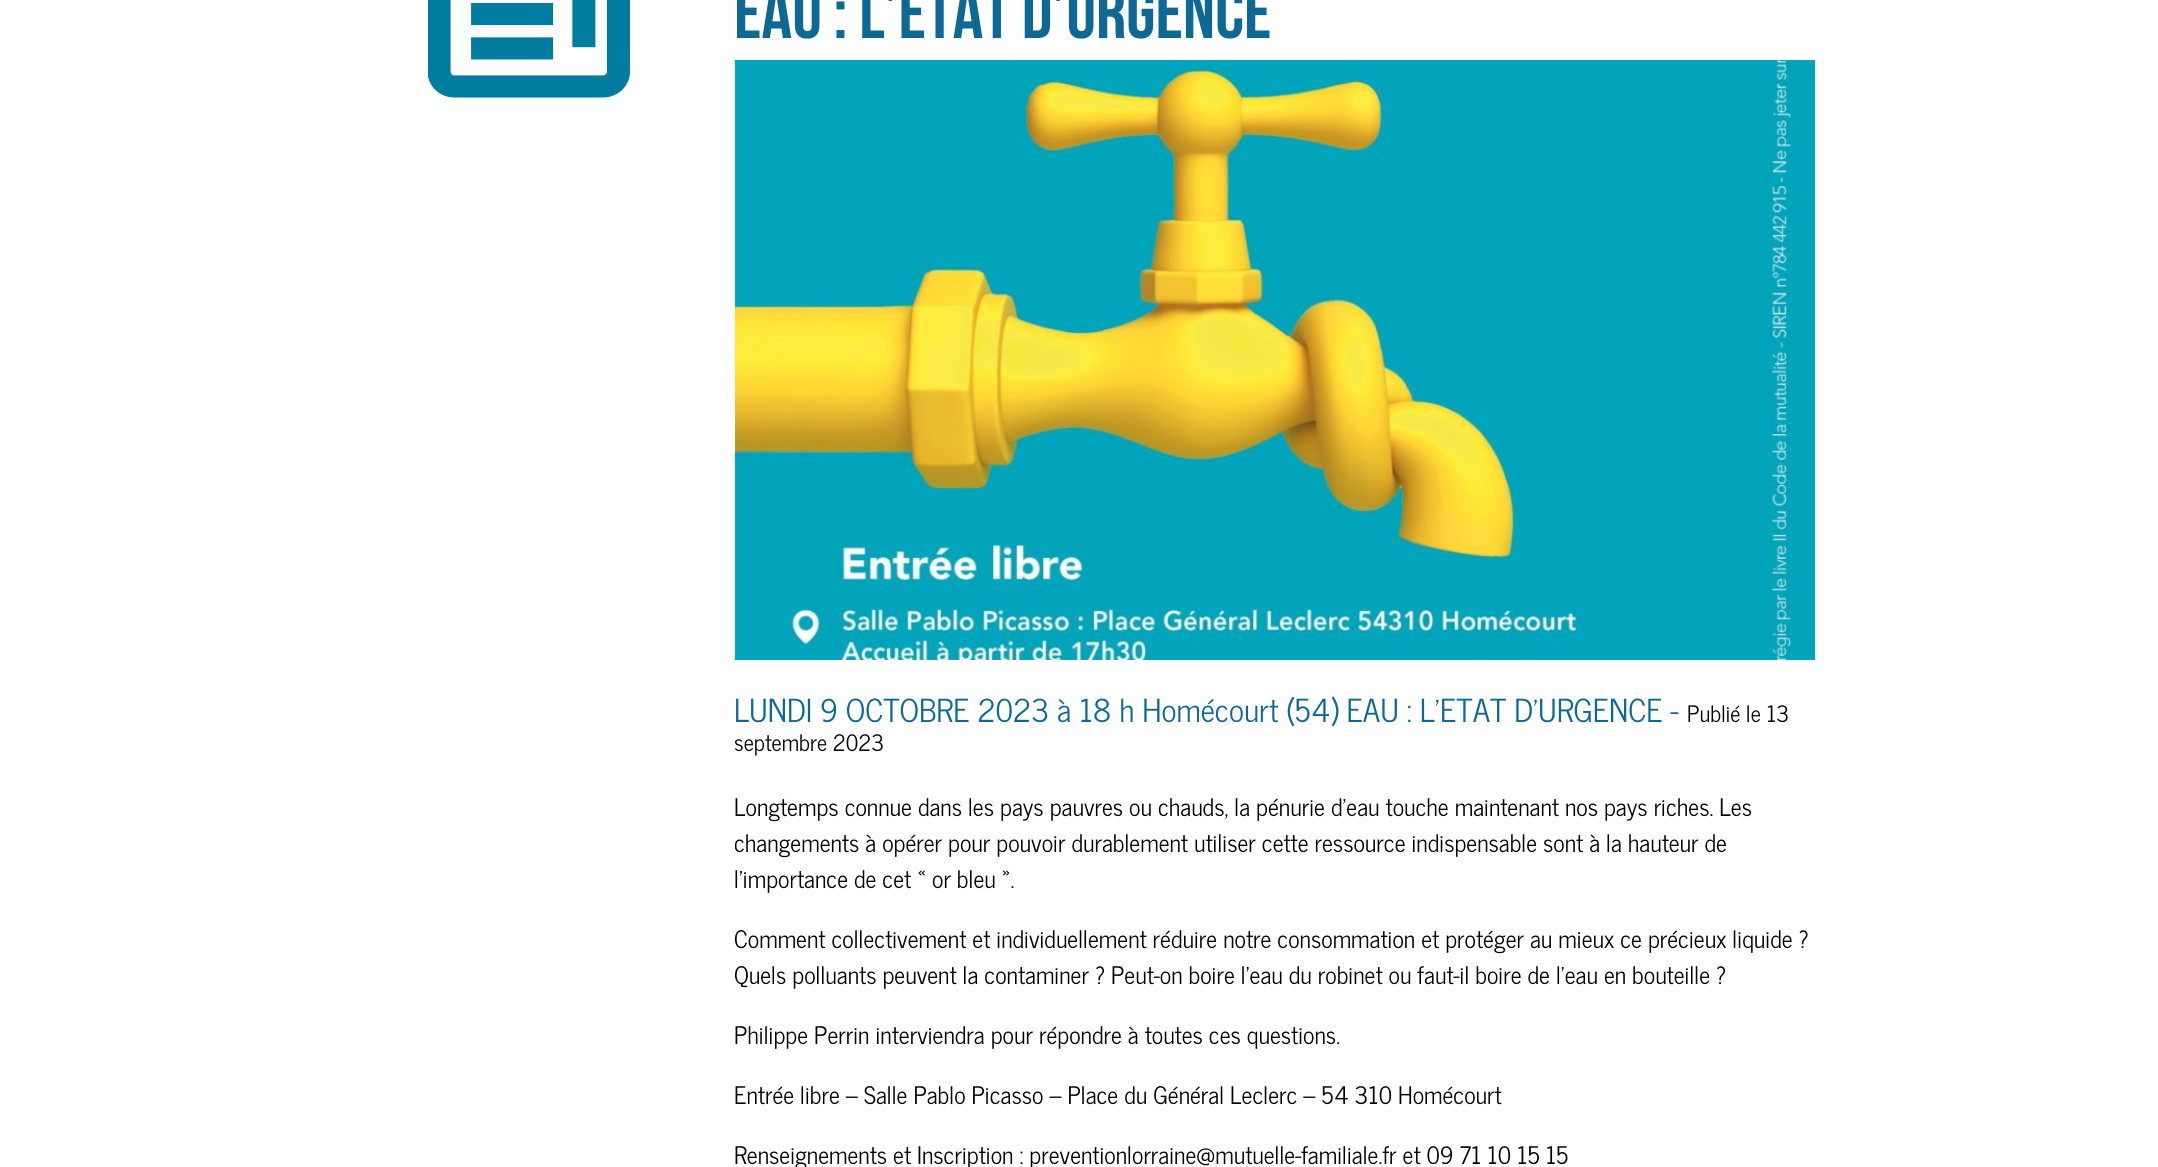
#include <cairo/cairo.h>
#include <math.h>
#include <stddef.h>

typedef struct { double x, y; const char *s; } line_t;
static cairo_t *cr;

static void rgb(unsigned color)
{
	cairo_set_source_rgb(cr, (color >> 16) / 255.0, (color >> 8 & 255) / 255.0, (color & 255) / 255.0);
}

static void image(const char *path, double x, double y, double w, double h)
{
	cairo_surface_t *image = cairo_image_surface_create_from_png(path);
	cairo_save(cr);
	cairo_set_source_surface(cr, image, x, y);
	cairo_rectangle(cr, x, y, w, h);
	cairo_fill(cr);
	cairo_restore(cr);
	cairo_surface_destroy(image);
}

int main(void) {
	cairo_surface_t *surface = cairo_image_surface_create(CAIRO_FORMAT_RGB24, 2158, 1167);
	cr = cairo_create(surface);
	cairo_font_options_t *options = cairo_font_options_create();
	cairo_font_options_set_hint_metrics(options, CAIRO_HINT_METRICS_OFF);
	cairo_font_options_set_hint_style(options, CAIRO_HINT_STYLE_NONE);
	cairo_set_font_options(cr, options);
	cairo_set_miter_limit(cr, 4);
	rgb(0xffffff);
	cairo_paint(cr);
	image("img/1.png", 428, 0, 202, 98);
	image("img/2.png", 735, 60, 1080, 600);
	cairo_select_font_face(cr, "Bebas Neue", CAIRO_FONT_SLANT_NORMAL, CAIRO_FONT_WEIGHT_NORMAL);
	cairo_set_font_size(cr, 75);
	rgb(0x0d6894);
	cairo_move_to(cr, 734, 38);
	cairo_show_text(cr, "EAU : L’ETAT D’URGENCE");
	cairo_select_font_face(cr, "News Cycle", CAIRO_FONT_SLANT_NORMAL, CAIRO_FONT_WEIGHT_NORMAL);
	cairo_set_font_size(cr, 31.5);
	cairo_move_to(cr, 734, 722);
	cairo_show_text(cr, "LUNDI 9 OCTOBRE 2023 à 18 h Homécourt (54) EAU : L’ETAT D’URGENCE -");
	cairo_set_font_size(cr, 22.5);
	rgb(0x000000);
	cairo_move_to(cr, 1687, 722);
	cairo_show_text(cr, "Publié le 13");
	cairo_move_to(cr, 734, 751);
	cairo_show_text(cr, "septembre 2023");
	cairo_set_font_size(cr, 24);
	{
		static const line_t items[] = {
			{734, 816, "Longtemps connue dans les pays pauvres ou chauds, la pénurie d’eau touche maintenant nos pays riches. Les"},
			{734, 852, "changements à opérer pour pouvoir durablement utiliser cette ressource indispensable sont à la hauteur de"},
			{734, 888, "l’importance de cet « or bleu »."},
			{734, 948, "Comment collectivement et individuellement réduire notre consommation et protéger au mieux ce précieux liquide ?"},
			{734, 984, "Quels polluants peuvent la contaminer ? Peut-on boire l’eau du robinet ou faut-il boire de l’eau en bouteille ?"},
			{734, 1044, "Philippe Perrin interviendra pour répondre à toutes ces questions."},
			{734, 1104, "Entrée libre – Salle Pablo Picasso – Place du Général Leclerc – 54 310 Homécourt"},
			{734, 1164, "Renseignements et Inscription : preventionlorraine@mutuelle-familiale.fr et 09 71 10 15 15"},
		};
		for (size_t i = 0; i < sizeof items / sizeof *items; i++) {
			cairo_move_to(cr, items[i].x, items[i].y);
			cairo_show_text(cr, items[i].s);
		}
	}
	cairo_surface_write_to_png(surface, "page.png");
	cairo_font_options_destroy(options);
	cairo_destroy(cr);
	cairo_surface_destroy(surface);
	return 0;
}
